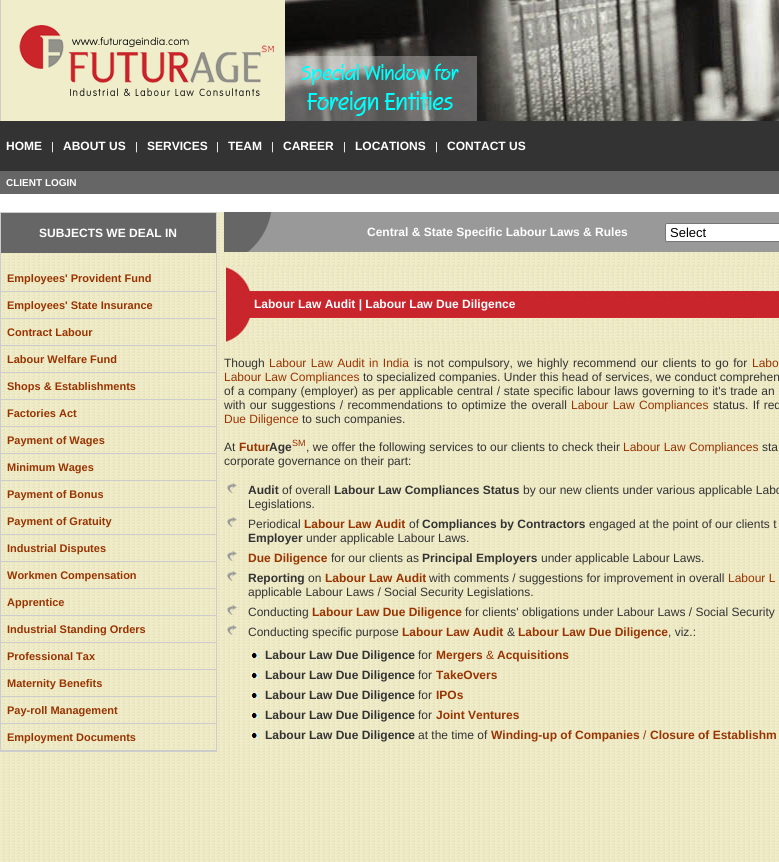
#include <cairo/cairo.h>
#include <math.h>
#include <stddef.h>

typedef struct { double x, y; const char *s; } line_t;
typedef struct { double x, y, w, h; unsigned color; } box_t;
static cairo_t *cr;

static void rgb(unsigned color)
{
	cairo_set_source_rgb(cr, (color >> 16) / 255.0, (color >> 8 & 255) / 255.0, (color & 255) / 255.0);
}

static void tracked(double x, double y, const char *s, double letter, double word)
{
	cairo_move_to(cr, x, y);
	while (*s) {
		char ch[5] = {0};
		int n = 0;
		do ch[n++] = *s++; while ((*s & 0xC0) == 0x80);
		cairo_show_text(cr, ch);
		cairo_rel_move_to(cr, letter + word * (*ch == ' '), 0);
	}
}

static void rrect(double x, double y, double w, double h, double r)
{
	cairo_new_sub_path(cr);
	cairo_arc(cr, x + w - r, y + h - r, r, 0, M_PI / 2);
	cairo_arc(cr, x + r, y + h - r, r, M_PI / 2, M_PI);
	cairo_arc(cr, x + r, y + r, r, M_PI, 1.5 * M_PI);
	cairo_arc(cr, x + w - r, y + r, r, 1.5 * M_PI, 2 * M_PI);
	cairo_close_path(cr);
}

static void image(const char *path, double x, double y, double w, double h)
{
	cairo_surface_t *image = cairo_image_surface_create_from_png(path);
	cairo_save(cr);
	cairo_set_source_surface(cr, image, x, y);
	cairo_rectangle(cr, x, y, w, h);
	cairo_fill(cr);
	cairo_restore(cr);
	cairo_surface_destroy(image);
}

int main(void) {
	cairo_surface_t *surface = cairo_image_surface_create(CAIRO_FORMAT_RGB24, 779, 862);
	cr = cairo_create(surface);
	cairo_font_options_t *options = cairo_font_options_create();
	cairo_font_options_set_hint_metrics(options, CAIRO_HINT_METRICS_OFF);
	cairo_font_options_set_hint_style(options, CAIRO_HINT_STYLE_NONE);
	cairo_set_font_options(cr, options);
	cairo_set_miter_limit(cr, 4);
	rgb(0xffffff);
	cairo_paint(cr);
	image("img/1.png", 0, 0, 285, 121);
	image("img/2.png", 285, 0, 494, 121);
	rgb(0x333333);
	cairo_rectangle(cr, 0, 121, 779, 50);
	cairo_fill(cr);
	rgb(0x666666);
	cairo_rectangle(cr, 0, 171, 779, 23);
	cairo_fill(cr);
	image("img/3.png", 0, 212, 779, 650);
	cairo_rectangle(cr, 0.5, 212.5, 216, 539);
	rgb(0xcccccc);
	cairo_set_line_width(cr, 1);
	cairo_stroke(cr);
	{
		static const box_t items[] = {
			{1, 213, 215, 40, 0x666666},
			{1, 291, 215, 1, 0xcccccc},
			{1, 318, 215, 1, 0xcccccc},
			{1, 345, 215, 1, 0xcccccc},
			{1, 372, 215, 1, 0xcccccc},
			{1, 399, 215, 1, 0xcccccc},
			{1, 426, 215, 1, 0xcccccc},
			{1, 453, 215, 1, 0xcccccc},
			{1, 480, 215, 1, 0xcccccc},
			{1, 507, 215, 1, 0xcccccc},
			{1, 534, 215, 1, 0xcccccc},
			{1, 561, 215, 1, 0xcccccc},
			{1, 588, 215, 1, 0xcccccc},
			{1, 615, 215, 1, 0xcccccc},
			{1, 642, 215, 1, 0xcccccc},
			{1, 669, 215, 1, 0xcccccc},
			{1, 696, 215, 1, 0xcccccc},
			{1, 723, 215, 1, 0xcccccc},
			{1, 750, 215, 1, 0xcccccc},
			{272, 212, 507, 40, 0x999999},
		};
		for (size_t i = 0; i < sizeof items / sizeof *items; i++) {
			rgb(items[i].color);
			cairo_rectangle(cr, items[i].x, items[i].y, items[i].w, items[i].h);
			cairo_fill(cr);
		}
	}
	image("img/4.png", 224, 212, 48, 40);
	rgb(0xffffff);
	rrect(665.5, 223.5, 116, 18, 1.5);
	cairo_fill_preserve(cr);
	rgb(0x767676);
	cairo_stroke(cr);
	image("img/5.png", 224, 266, 555, 76);
	image("img/6.png", 227, 483, 10, 10);
	image("img/6.png", 227, 517, 10, 10);
	image("img/7.png", 227, 551, 10, 10);
	image("img/7.png", 227, 571, 10, 10);
	image("img/7.png", 227, 605, 10, 10);
	image("img/7.png", 227, 625, 10, 10);
	image("img/8.png", 251, 653, 6, 5);
	image("img/8.png", 251, 673, 6, 5);
	image("img/8.png", 251, 693, 6, 5);
	image("img/8.png", 251, 713, 6, 5);
	image("img/8.png", 251, 733, 6, 5);
	cairo_select_font_face(cr, "Liberation Sans", CAIRO_FONT_SLANT_NORMAL, CAIRO_FONT_WEIGHT_BOLD);
	cairo_set_font_size(cr, 12);
	rgb(0xffffff);
	cairo_move_to(cr, 6, 150);
	cairo_show_text(cr, "HOME");
	cairo_select_font_face(cr, "Liberation Sans", CAIRO_FONT_SLANT_NORMAL, CAIRO_FONT_WEIGHT_NORMAL);
	cairo_set_font_size(cr, 11);
	cairo_move_to(cr, 51, 150);
	cairo_show_text(cr, "|");
	cairo_select_font_face(cr, "Liberation Sans", CAIRO_FONT_SLANT_NORMAL, CAIRO_FONT_WEIGHT_BOLD);
	cairo_set_font_size(cr, 12);
	cairo_move_to(cr, 63, 150);
	cairo_show_text(cr, "ABOUT US");
	cairo_select_font_face(cr, "Liberation Sans", CAIRO_FONT_SLANT_NORMAL, CAIRO_FONT_WEIGHT_NORMAL);
	cairo_set_font_size(cr, 11);
	cairo_move_to(cr, 135, 150);
	cairo_show_text(cr, "|");
	cairo_select_font_face(cr, "Liberation Sans", CAIRO_FONT_SLANT_NORMAL, CAIRO_FONT_WEIGHT_BOLD);
	cairo_set_font_size(cr, 12);
	cairo_move_to(cr, 147, 150);
	cairo_show_text(cr, "SERVICES");
	cairo_select_font_face(cr, "Liberation Sans", CAIRO_FONT_SLANT_NORMAL, CAIRO_FONT_WEIGHT_NORMAL);
	cairo_set_font_size(cr, 11);
	cairo_move_to(cr, 216, 150);
	cairo_show_text(cr, "|");
	cairo_select_font_face(cr, "Liberation Sans", CAIRO_FONT_SLANT_NORMAL, CAIRO_FONT_WEIGHT_BOLD);
	cairo_set_font_size(cr, 12);
	cairo_move_to(cr, 228, 150);
	cairo_show_text(cr, "TEAM");
	cairo_select_font_face(cr, "Liberation Sans", CAIRO_FONT_SLANT_NORMAL, CAIRO_FONT_WEIGHT_NORMAL);
	cairo_set_font_size(cr, 11);
	cairo_move_to(cr, 271, 150);
	cairo_show_text(cr, "|");
	cairo_select_font_face(cr, "Liberation Sans", CAIRO_FONT_SLANT_NORMAL, CAIRO_FONT_WEIGHT_BOLD);
	cairo_set_font_size(cr, 12);
	cairo_move_to(cr, 283, 150);
	cairo_show_text(cr, "CAREER");
	cairo_select_font_face(cr, "Liberation Sans", CAIRO_FONT_SLANT_NORMAL, CAIRO_FONT_WEIGHT_NORMAL);
	cairo_set_font_size(cr, 11);
	cairo_move_to(cr, 343, 150);
	cairo_show_text(cr, "|");
	cairo_select_font_face(cr, "Liberation Sans", CAIRO_FONT_SLANT_NORMAL, CAIRO_FONT_WEIGHT_BOLD);
	cairo_set_font_size(cr, 12);
	cairo_move_to(cr, 355, 150);
	cairo_show_text(cr, "LOCATIONS");
	cairo_select_font_face(cr, "Liberation Sans", CAIRO_FONT_SLANT_NORMAL, CAIRO_FONT_WEIGHT_NORMAL);
	cairo_set_font_size(cr, 11);
	cairo_move_to(cr, 435, 150);
	cairo_show_text(cr, "|");
	cairo_select_font_face(cr, "Liberation Sans", CAIRO_FONT_SLANT_NORMAL, CAIRO_FONT_WEIGHT_BOLD);
	cairo_set_font_size(cr, 12);
	cairo_move_to(cr, 447, 150);
	cairo_show_text(cr, "CONTACT US");
	cairo_set_font_size(cr, 10);
	cairo_move_to(cr, 6, 186);
	cairo_show_text(cr, "CLIENT LOGIN");
	cairo_set_font_size(cr, 12);
	cairo_move_to(cr, 39, 237);
	cairo_show_text(cr, "SUBJECTS WE DEAL IN");
	cairo_set_font_size(cr, 11);
	rgb(0x993300);
	{
		static const line_t items[] = {
			{7, 282, "Employees' Provident Fund"},
			{7, 309, "Employees' State Insurance"},
			{7, 336, "Contract Labour"},
			{7, 363, "Labour Welfare Fund"},
			{7, 390, "Shops & Establishments"},
			{7, 417, "Factories Act"},
			{7, 444, "Payment of Wages"},
			{7, 471, "Minimum Wages"},
			{7, 498, "Payment of Bonus"},
			{7, 525, "Payment of Gratuity"},
			{7, 552, "Industrial Disputes"},
			{7, 579, "Workmen Compensation"},
			{7, 606, "Apprentice"},
			{7, 633, "Industrial Standing Orders"},
			{7, 660, "Professional Tax"},
			{7, 687, "Maternity Benefits"},
			{7, 714, "Pay-roll Management"},
			{7, 741, "Employment Documents"},
		};
		for (size_t i = 0; i < sizeof items / sizeof *items; i++) {
			cairo_move_to(cr, items[i].x, items[i].y);
			cairo_show_text(cr, items[i].s);
		}
	}
	cairo_set_font_size(cr, 12);
	rgb(0xffffff);
	cairo_move_to(cr, 367, 236);
	cairo_show_text(cr, "Central & State Specific Labour Laws & Rules");
	cairo_select_font_face(cr, "Liberation Sans", CAIRO_FONT_SLANT_NORMAL, CAIRO_FONT_WEIGHT_NORMAL);
	cairo_set_font_size(cr, 13);
	rgb(0x000000);
	cairo_move_to(cr, 670, 237);
	cairo_show_text(cr, "Select");
	cairo_select_font_face(cr, "Liberation Sans", CAIRO_FONT_SLANT_NORMAL, CAIRO_FONT_WEIGHT_BOLD);
	cairo_set_font_size(cr, 12);
	rgb(0xffffff);
	cairo_move_to(cr, 254, 308);
	cairo_show_text(cr, "Labour Law Audit | Labour Law Due Diligence");
	cairo_select_font_face(cr, "Liberation Sans", CAIRO_FONT_SLANT_NORMAL, CAIRO_FONT_WEIGHT_NORMAL);
	rgb(0x333333);
	cairo_move_to(cr, 224, 367);
	cairo_show_text(cr, "Though");
	rgb(0x993300);
	tracked(269, 367, "Labour Law Audit in India", 0, 1.1);
	rgb(0x333333);
	tracked(414, 367, "is not compulsory, we highly recommend our clients to go for", 0, 1.1);
	rgb(0x993300);
	tracked(752, 367, "Labo", 0, 1);
	cairo_move_to(cr, 224, 381);
	cairo_show_text(cr, "Labour Law Compliances");
	rgb(0x333333);
	cairo_move_to(cr, 363, 381);
	cairo_show_text(cr, "to specialized companies. Under this head of services, we conduct comprehen");
	tracked(224, 395, "of a company (employer) as per applicable central / state specific labour laws governing to it's trade an", 0, 0.4);
	tracked(224, 409, "with our suggestions / recommendations to optimize the overall", 0, 1);
	rgb(0x993300);
	tracked(571, 409, "Labour Law Compliances", 0, 1);
	rgb(0x333333);
	tracked(713, 409, "status. If req", 0, 1);
	rgb(0x993300);
	cairo_move_to(cr, 224, 423);
	cairo_show_text(cr, "Due Diligence");
	rgb(0x333333);
	cairo_move_to(cr, 302, 423);
	cairo_show_text(cr, "to such companies.");
	cairo_move_to(cr, 224, 451);
	cairo_show_text(cr, "At");
	cairo_select_font_face(cr, "Liberation Sans", CAIRO_FONT_SLANT_NORMAL, CAIRO_FONT_WEIGHT_BOLD);
	rgb(0x993300);
	cairo_move_to(cr, 239, 451);
	cairo_show_text(cr, "Futur");
	rgb(0x333333);
	cairo_move_to(cr, 269, 451);
	cairo_show_text(cr, "Age");
	cairo_select_font_face(cr, "Liberation Sans", CAIRO_FONT_SLANT_NORMAL, CAIRO_FONT_WEIGHT_NORMAL);
	cairo_set_font_size(cr, 9);
	rgb(0x993300);
	cairo_move_to(cr, 292, 446);
	cairo_show_text(cr, "SM");
	cairo_set_font_size(cr, 12);
	rgb(0x333333);
	tracked(306, 451, ", we offer the following services to our clients to check their", 0, 0.1);
	rgb(0x993300);
	cairo_move_to(cr, 623, 451);
	cairo_show_text(cr, "Labour Law Compliances");
	rgb(0x333333);
	tracked(762, 451, "sta", 0, 0.1);
	cairo_move_to(cr, 224, 465);
	cairo_show_text(cr, "corporate governance on their part:");
	cairo_select_font_face(cr, "Liberation Sans", CAIRO_FONT_SLANT_NORMAL, CAIRO_FONT_WEIGHT_BOLD);
	cairo_move_to(cr, 248, 494);
	cairo_show_text(cr, "Audit");
	cairo_select_font_face(cr, "Liberation Sans", CAIRO_FONT_SLANT_NORMAL, CAIRO_FONT_WEIGHT_NORMAL);
	cairo_move_to(cr, 282, 494);
	cairo_show_text(cr, "of overall");
	cairo_select_font_face(cr, "Liberation Sans", CAIRO_FONT_SLANT_NORMAL, CAIRO_FONT_WEIGHT_BOLD);
	cairo_move_to(cr, 334, 494);
	cairo_show_text(cr, "Labour Law Compliances Status");
	cairo_select_font_face(cr, "Liberation Sans", CAIRO_FONT_SLANT_NORMAL, CAIRO_FONT_WEIGHT_NORMAL);
	{
		static const line_t items[] = {
			{523, 494, "by our new clients under various applicable Labo"},
			{248, 508, "Legislations."},
			{248, 528, "Periodical"},
		};
		for (size_t i = 0; i < sizeof items / sizeof *items; i++) {
			cairo_move_to(cr, items[i].x, items[i].y);
			cairo_show_text(cr, items[i].s);
		}
	}
	cairo_select_font_face(cr, "Liberation Sans", CAIRO_FONT_SLANT_NORMAL, CAIRO_FONT_WEIGHT_BOLD);
	rgb(0x993300);
	cairo_move_to(cr, 304, 528);
	cairo_show_text(cr, "Labour Law Audit");
	cairo_select_font_face(cr, "Liberation Sans", CAIRO_FONT_SLANT_NORMAL, CAIRO_FONT_WEIGHT_NORMAL);
	rgb(0x333333);
	cairo_move_to(cr, 409, 528);
	cairo_show_text(cr, "of");
	cairo_select_font_face(cr, "Liberation Sans", CAIRO_FONT_SLANT_NORMAL, CAIRO_FONT_WEIGHT_BOLD);
	cairo_move_to(cr, 422, 528);
	cairo_show_text(cr, "Compliances by Contractors");
	cairo_select_font_face(cr, "Liberation Sans", CAIRO_FONT_SLANT_NORMAL, CAIRO_FONT_WEIGHT_NORMAL);
	cairo_move_to(cr, 589, 528);
	cairo_show_text(cr, "engaged at the point of our clients t");
	cairo_select_font_face(cr, "Liberation Sans", CAIRO_FONT_SLANT_NORMAL, CAIRO_FONT_WEIGHT_BOLD);
	cairo_move_to(cr, 248, 542);
	cairo_show_text(cr, "Employer");
	cairo_select_font_face(cr, "Liberation Sans", CAIRO_FONT_SLANT_NORMAL, CAIRO_FONT_WEIGHT_NORMAL);
	cairo_move_to(cr, 306, 542);
	cairo_show_text(cr, "under applicable Labour Laws.");
	cairo_select_font_face(cr, "Liberation Sans", CAIRO_FONT_SLANT_NORMAL, CAIRO_FONT_WEIGHT_BOLD);
	rgb(0x993300);
	cairo_move_to(cr, 248, 562);
	cairo_show_text(cr, "Due Diligence");
	cairo_select_font_face(cr, "Liberation Sans", CAIRO_FONT_SLANT_NORMAL, CAIRO_FONT_WEIGHT_NORMAL);
	rgb(0x333333);
	cairo_move_to(cr, 331, 562);
	cairo_show_text(cr, "for our clients as");
	cairo_select_font_face(cr, "Liberation Sans", CAIRO_FONT_SLANT_NORMAL, CAIRO_FONT_WEIGHT_BOLD);
	cairo_move_to(cr, 422, 562);
	cairo_show_text(cr, "Principal Employers");
	cairo_select_font_face(cr, "Liberation Sans", CAIRO_FONT_SLANT_NORMAL, CAIRO_FONT_WEIGHT_NORMAL);
	cairo_move_to(cr, 541, 562);
	cairo_show_text(cr, "under applicable Labour Laws.");
	cairo_select_font_face(cr, "Liberation Sans", CAIRO_FONT_SLANT_NORMAL, CAIRO_FONT_WEIGHT_BOLD);
	cairo_move_to(cr, 248, 582);
	cairo_show_text(cr, "Reporting");
	cairo_select_font_face(cr, "Liberation Sans", CAIRO_FONT_SLANT_NORMAL, CAIRO_FONT_WEIGHT_NORMAL);
	cairo_move_to(cr, 308, 582);
	cairo_show_text(cr, "on");
	cairo_select_font_face(cr, "Liberation Sans", CAIRO_FONT_SLANT_NORMAL, CAIRO_FONT_WEIGHT_BOLD);
	rgb(0x993300);
	cairo_move_to(cr, 325, 582);
	cairo_show_text(cr, "Labour Law Audit");
	cairo_select_font_face(cr, "Liberation Sans", CAIRO_FONT_SLANT_NORMAL, CAIRO_FONT_WEIGHT_NORMAL);
	rgb(0x333333);
	cairo_move_to(cr, 429, 582);
	cairo_show_text(cr, "with comments / suggestions for improvement in overall");
	rgb(0x993300);
	cairo_move_to(cr, 728, 582);
	cairo_show_text(cr, "Labour L");
	rgb(0x333333);
	cairo_move_to(cr, 248, 596);
	cairo_show_text(cr, "applicable Labour Laws / Social Security Legislations.");
	cairo_move_to(cr, 248, 616);
	cairo_show_text(cr, "Conducting");
	cairo_select_font_face(cr, "Liberation Sans", CAIRO_FONT_SLANT_NORMAL, CAIRO_FONT_WEIGHT_BOLD);
	rgb(0x993300);
	cairo_move_to(cr, 312, 616);
	cairo_show_text(cr, "Labour Law Due Diligence");
	cairo_select_font_face(cr, "Liberation Sans", CAIRO_FONT_SLANT_NORMAL, CAIRO_FONT_WEIGHT_NORMAL);
	rgb(0x333333);
	cairo_move_to(cr, 465, 616);
	cairo_show_text(cr, "for clients' obligations under Labour Laws / Social Security");
	cairo_move_to(cr, 248, 636);
	cairo_show_text(cr, "Conducting specific purpose");
	cairo_select_font_face(cr, "Liberation Sans", CAIRO_FONT_SLANT_NORMAL, CAIRO_FONT_WEIGHT_BOLD);
	rgb(0x993300);
	cairo_move_to(cr, 402, 636);
	cairo_show_text(cr, "Labour Law Audit");
	cairo_select_font_face(cr, "Liberation Sans", CAIRO_FONT_SLANT_NORMAL, CAIRO_FONT_WEIGHT_NORMAL);
	rgb(0x333333);
	cairo_move_to(cr, 507, 636);
	cairo_show_text(cr, "&");
	cairo_select_font_face(cr, "Liberation Sans", CAIRO_FONT_SLANT_NORMAL, CAIRO_FONT_WEIGHT_BOLD);
	rgb(0x993300);
	cairo_move_to(cr, 518, 636);
	cairo_show_text(cr, "Labour Law Due Diligence");
	cairo_select_font_face(cr, "Liberation Sans", CAIRO_FONT_SLANT_NORMAL, CAIRO_FONT_WEIGHT_NORMAL);
	rgb(0x333333);
	cairo_move_to(cr, 668, 636);
	cairo_show_text(cr, ", viz.:");
	cairo_select_font_face(cr, "Liberation Sans", CAIRO_FONT_SLANT_NORMAL, CAIRO_FONT_WEIGHT_BOLD);
	cairo_move_to(cr, 265, 659);
	cairo_show_text(cr, "Labour Law Due Diligence");
	cairo_select_font_face(cr, "Liberation Sans", CAIRO_FONT_SLANT_NORMAL, CAIRO_FONT_WEIGHT_NORMAL);
	cairo_move_to(cr, 418, 659);
	cairo_show_text(cr, "for");
	cairo_select_font_face(cr, "Liberation Sans", CAIRO_FONT_SLANT_NORMAL, CAIRO_FONT_WEIGHT_BOLD);
	rgb(0x993300);
	cairo_move_to(cr, 436, 659);
	cairo_show_text(cr, "Mergers");
	cairo_select_font_face(cr, "Liberation Sans", CAIRO_FONT_SLANT_NORMAL, CAIRO_FONT_WEIGHT_NORMAL);
	cairo_move_to(cr, 486, 659);
	cairo_show_text(cr, "&");
	cairo_select_font_face(cr, "Liberation Sans", CAIRO_FONT_SLANT_NORMAL, CAIRO_FONT_WEIGHT_BOLD);
	cairo_move_to(cr, 497, 659);
	cairo_show_text(cr, "Acquisitions");
	rgb(0x333333);
	cairo_move_to(cr, 265, 679);
	cairo_show_text(cr, "Labour Law Due Diligence");
	cairo_select_font_face(cr, "Liberation Sans", CAIRO_FONT_SLANT_NORMAL, CAIRO_FONT_WEIGHT_NORMAL);
	cairo_move_to(cr, 418, 679);
	cairo_show_text(cr, "for");
	cairo_select_font_face(cr, "Liberation Sans", CAIRO_FONT_SLANT_NORMAL, CAIRO_FONT_WEIGHT_BOLD);
	rgb(0x993300);
	cairo_move_to(cr, 436, 679);
	cairo_show_text(cr, "TakeOvers");
	rgb(0x333333);
	cairo_move_to(cr, 265, 699);
	cairo_show_text(cr, "Labour Law Due Diligence");
	cairo_select_font_face(cr, "Liberation Sans", CAIRO_FONT_SLANT_NORMAL, CAIRO_FONT_WEIGHT_NORMAL);
	cairo_move_to(cr, 418, 699);
	cairo_show_text(cr, "for");
	cairo_select_font_face(cr, "Liberation Sans", CAIRO_FONT_SLANT_NORMAL, CAIRO_FONT_WEIGHT_BOLD);
	rgb(0x993300);
	cairo_move_to(cr, 436, 699);
	cairo_show_text(cr, "IPOs");
	rgb(0x333333);
	cairo_move_to(cr, 265, 719);
	cairo_show_text(cr, "Labour Law Due Diligence");
	cairo_select_font_face(cr, "Liberation Sans", CAIRO_FONT_SLANT_NORMAL, CAIRO_FONT_WEIGHT_NORMAL);
	cairo_move_to(cr, 418, 719);
	cairo_show_text(cr, "for");
	cairo_select_font_face(cr, "Liberation Sans", CAIRO_FONT_SLANT_NORMAL, CAIRO_FONT_WEIGHT_BOLD);
	rgb(0x993300);
	cairo_move_to(cr, 436, 719);
	cairo_show_text(cr, "Joint Ventures");
	rgb(0x333333);
	cairo_move_to(cr, 265, 739);
	cairo_show_text(cr, "Labour Law Due Diligence");
	cairo_select_font_face(cr, "Liberation Sans", CAIRO_FONT_SLANT_NORMAL, CAIRO_FONT_WEIGHT_NORMAL);
	cairo_move_to(cr, 418, 739);
	cairo_show_text(cr, "at the time of");
	cairo_select_font_face(cr, "Liberation Sans", CAIRO_FONT_SLANT_NORMAL, CAIRO_FONT_WEIGHT_BOLD);
	rgb(0x993300);
	cairo_move_to(cr, 491, 739);
	cairo_show_text(cr, "Winding-up of Companies");
	cairo_select_font_face(cr, "Liberation Sans", CAIRO_FONT_SLANT_NORMAL, CAIRO_FONT_WEIGHT_NORMAL);
	cairo_move_to(cr, 643, 739);
	cairo_show_text(cr, "/");
	cairo_select_font_face(cr, "Liberation Sans", CAIRO_FONT_SLANT_NORMAL, CAIRO_FONT_WEIGHT_BOLD);
	cairo_move_to(cr, 650, 739);
	cairo_show_text(cr, "Closure of Establishm");
	cairo_surface_write_to_png(surface, "page.png");
	cairo_font_options_destroy(options);
	cairo_destroy(cr);
	cairo_surface_destroy(surface);
	return 0;
}
